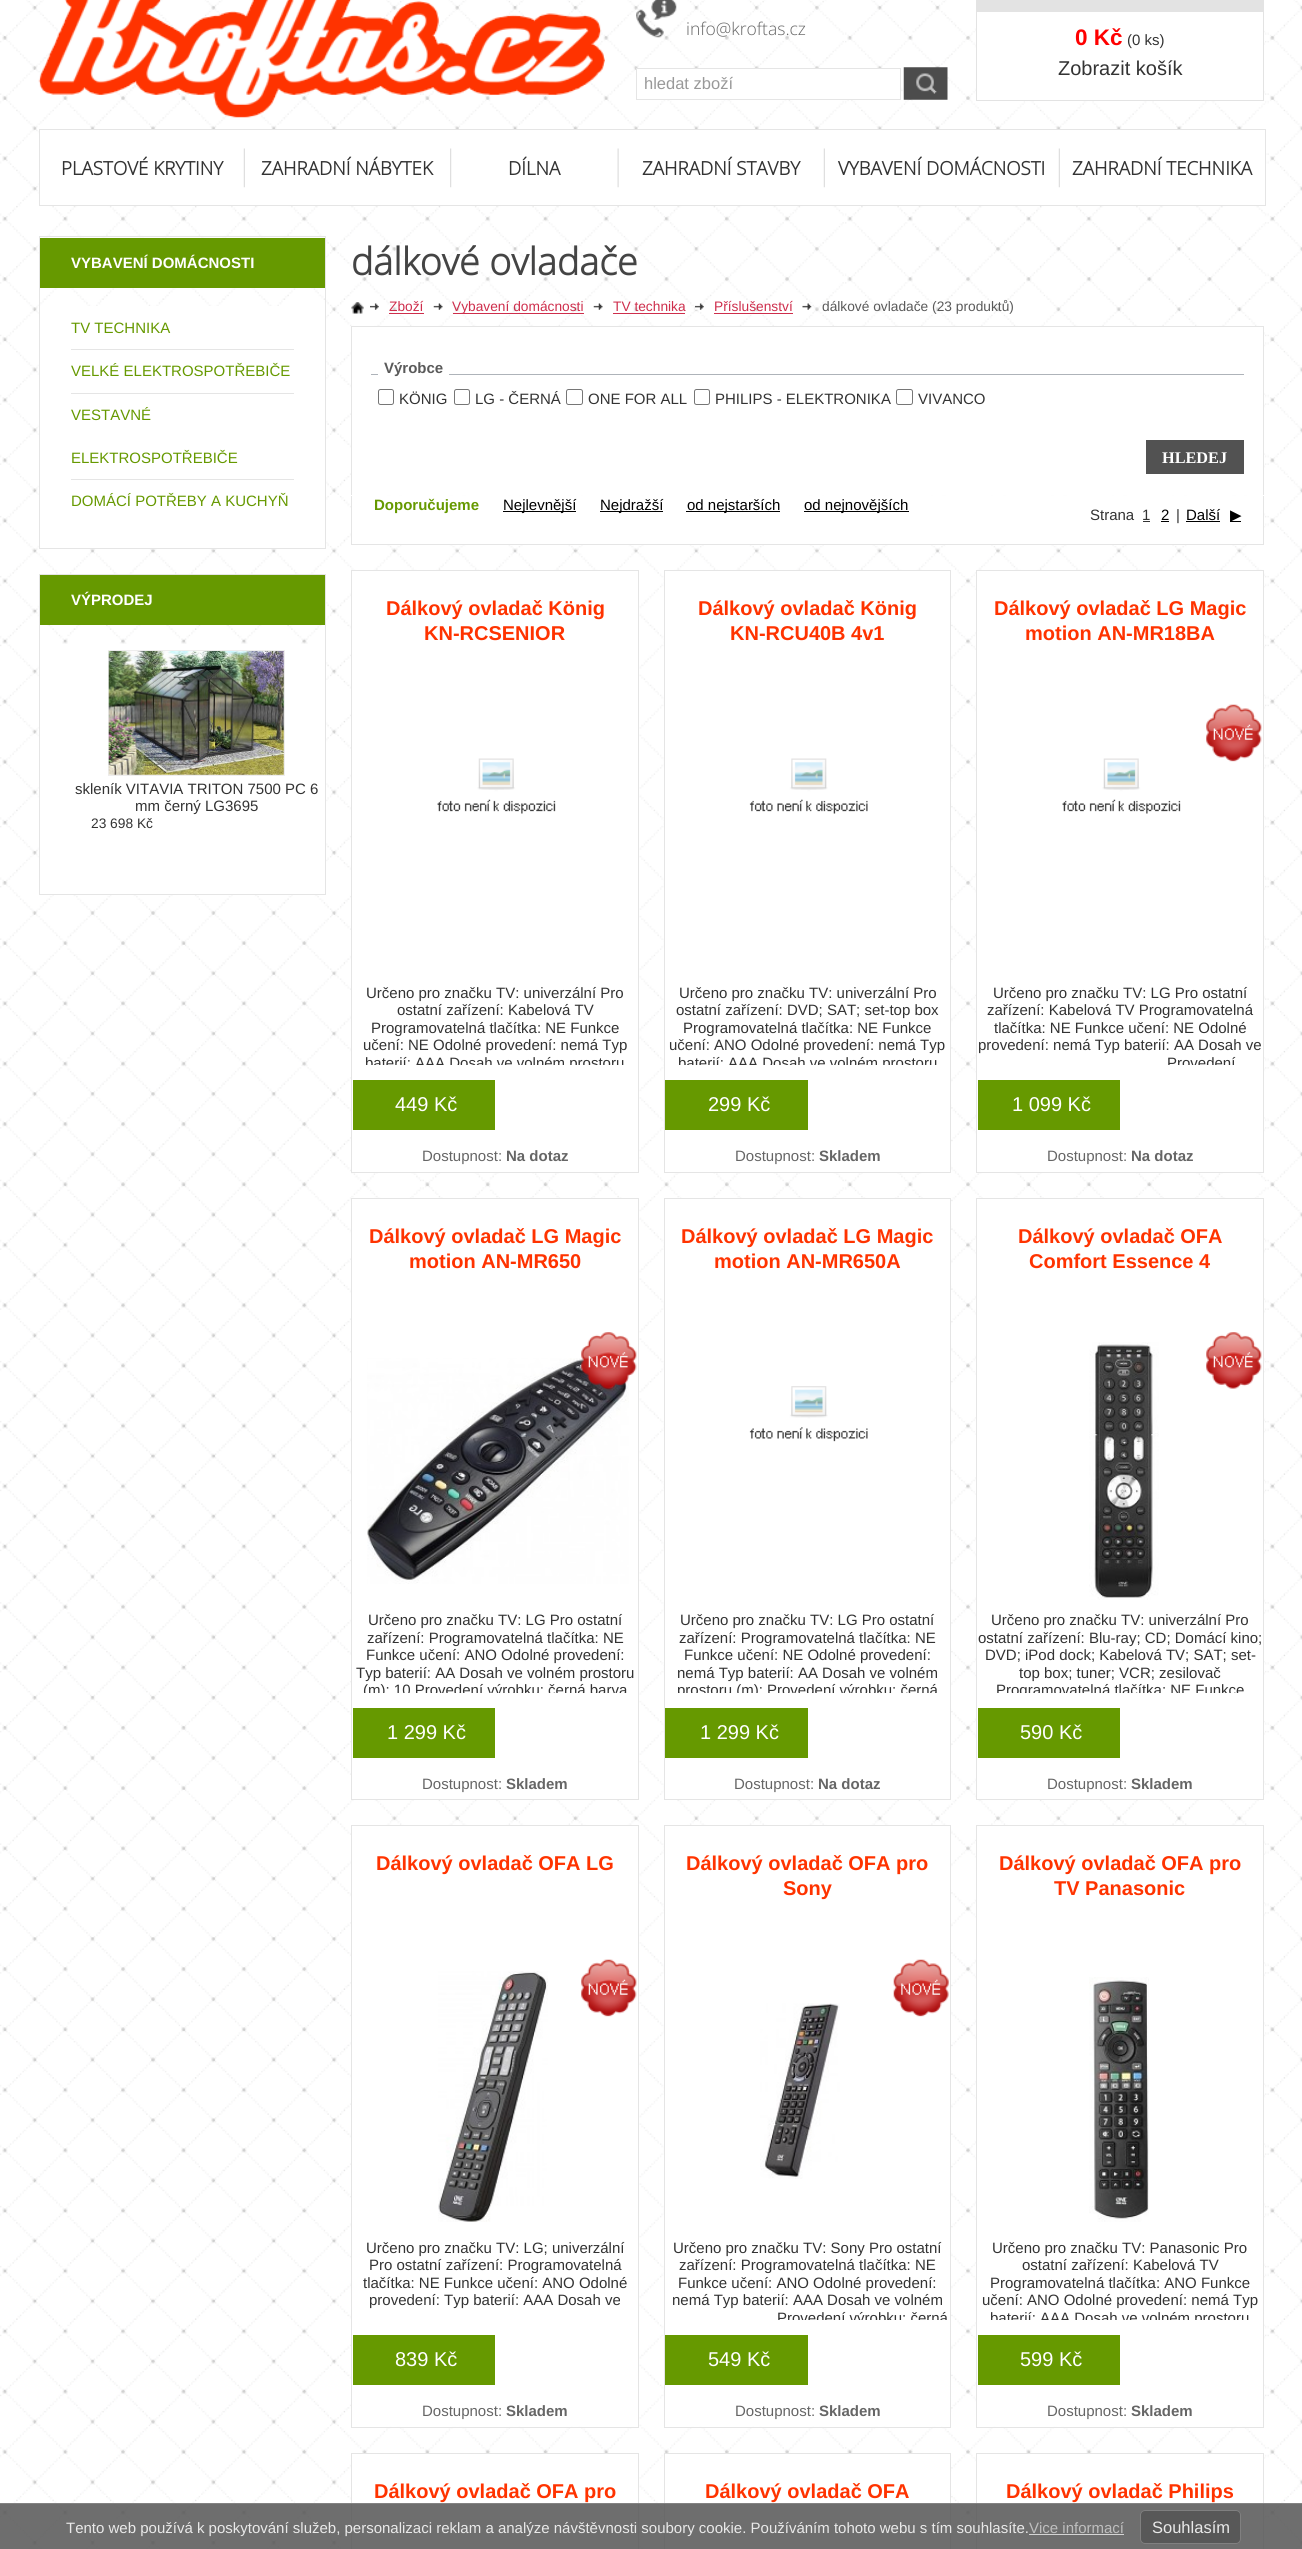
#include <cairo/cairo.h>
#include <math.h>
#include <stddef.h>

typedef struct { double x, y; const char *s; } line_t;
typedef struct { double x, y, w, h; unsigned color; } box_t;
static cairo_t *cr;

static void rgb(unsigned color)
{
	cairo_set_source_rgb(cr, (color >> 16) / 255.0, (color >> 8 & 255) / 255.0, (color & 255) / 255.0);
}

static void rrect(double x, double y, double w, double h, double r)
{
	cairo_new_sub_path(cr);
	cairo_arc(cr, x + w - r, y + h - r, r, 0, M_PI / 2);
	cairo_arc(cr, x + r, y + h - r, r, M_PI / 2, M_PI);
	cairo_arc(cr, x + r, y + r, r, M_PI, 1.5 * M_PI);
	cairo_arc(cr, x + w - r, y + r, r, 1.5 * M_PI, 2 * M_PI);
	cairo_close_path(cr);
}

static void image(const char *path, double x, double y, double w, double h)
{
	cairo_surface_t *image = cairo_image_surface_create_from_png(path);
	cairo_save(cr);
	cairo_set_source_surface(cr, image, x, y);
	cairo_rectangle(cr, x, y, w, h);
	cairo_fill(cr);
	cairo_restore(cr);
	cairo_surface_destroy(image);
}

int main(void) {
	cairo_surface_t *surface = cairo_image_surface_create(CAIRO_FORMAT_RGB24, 1302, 2549);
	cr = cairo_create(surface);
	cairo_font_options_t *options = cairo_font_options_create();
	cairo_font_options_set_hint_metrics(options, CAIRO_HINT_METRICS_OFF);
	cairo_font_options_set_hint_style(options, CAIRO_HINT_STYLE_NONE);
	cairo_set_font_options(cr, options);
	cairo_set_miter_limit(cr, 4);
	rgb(0xffffff);
	cairo_paint(cr);
	image("img/1.png", 0, 0, 1302, 2549);
	image("img/2.png", 38, 0, 567, 118);
	image("img/3.png", 636, 0, 41, 38);
	rgb(0xffffff);
	cairo_rectangle(cr, 636.5, 68.5, 264, 31);
	cairo_fill_preserve(cr);
	rgb(0xe5e5e5);
	cairo_set_line_width(cr, 1);
	cairo_stroke(cr);
	image("img/4.png", 903, 67, 45, 33);
	rgb(0xe3e3e3);
	cairo_rectangle(cr, 976, 0, 288, 11);
	cairo_fill(cr);
	rgb(0xffffff);
	cairo_rectangle(cr, 976.5, 11.5, 287, 89);
	cairo_fill_preserve(cr);
	rgb(0xe3e3e3);
	cairo_stroke(cr);
	rgb(0xffffff);
	cairo_rectangle(cr, 39.5, 129.5, 1226, 76);
	cairo_fill_preserve(cr);
	rgb(0xe5e5e5);
	cairo_stroke(cr);
	image("img/5.png", 243, 148, 2, 40);
	image("img/6.png", 450, 148, 2, 40);
	image("img/7.png", 617, 148, 2, 40);
	image("img/5.png", 823, 148, 2, 40);
	image("img/5.png", 1058, 148, 2, 40);
	cairo_rectangle(cr, 39.5, 236.5, 286, 312);
	cairo_stroke(cr);
	{
		static const box_t items[] = {
			{40, 238, 285, 50, 0x669900},
			{40, 306, 285, 242, 0xffffff},
			{71, 349, 223, 1, 0xe5e5e5},
			{71, 393, 223, 1, 0xe5e5e5},
			{71, 479, 223, 1, 0xe5e5e5},
		};
		for (size_t i = 0; i < sizeof items / sizeof *items; i++) {
			rgb(items[i].color);
			cairo_rectangle(cr, items[i].x, items[i].y, items[i].w, items[i].h);
			cairo_fill(cr);
		}
	}
	cairo_rectangle(cr, 39.5, 574.5, 286, 320);
	cairo_stroke(cr);
	rgb(0x669900);
	cairo_rectangle(cr, 40, 575, 285, 50);
	cairo_fill(cr);
	rgb(0xffffff);
	cairo_rectangle(cr, 40, 644, 285, 250);
	cairo_fill(cr);
	cairo_rectangle(cr, 108.5, 650.5, 176, 125);
	rgb(0xeeeded);
	cairo_stroke(cr);
	image("img/8.png", 108, 651, 176, 124);
	image("img/9.png", 351, 302, 13, 12);
	image("img/10.png", 370, 303, 9, 7);
	rgb(0xce2e4c);
	cairo_rectangle(cr, 389, 313, 35, 1);
	cairo_fill(cr);
	image("img/11.png", 433, 303, 10, 7);
	cairo_rectangle(cr, 453, 313, 131, 1);
	cairo_fill(cr);
	image("img/11.png", 593, 303, 10, 7);
	cairo_rectangle(cr, 613, 313, 72, 1);
	cairo_fill(cr);
	image("img/12.png", 695, 303, 9, 7);
	cairo_rectangle(cr, 714, 313, 79, 1);
	cairo_fill(cr);
	image("img/13.png", 802, 303, 10, 7);
	{
		static const box_t items[] = {
			{352, 327, 911, 168, 0xffffff},
			{351, 326, 913, 1, 0xe5e5e5},
			{1263, 326, 1, 169, 0xe5e5e5},
			{351, 326, 1, 169, 0xe5e5e5},
			{371, 374, 873, 1, 0xaeb3b9},
			{378, 374, 71, 1, 0xffffff},
		};
		for (size_t i = 0; i < sizeof items / sizeof *items; i++) {
			rgb(items[i].color);
			cairo_rectangle(cr, items[i].x, items[i].y, items[i].w, items[i].h);
			cairo_fill(cr);
		}
	}
	rrect(378.5, 389.5, 15, 15, 2);
	rgb(0x767676);
	cairo_stroke(cr);
	rrect(454.5, 389.5, 15, 15, 2);
	cairo_stroke(cr);
	rrect(566.5, 389.5, 16, 15, 2);
	cairo_stroke(cr);
	rrect(694.5, 389.5, 15, 15, 2);
	cairo_stroke(cr);
	rrect(896.5, 389.5, 16, 15, 2);
	cairo_stroke(cr);
	{
		static const box_t items[] = {
			{1146, 440, 98, 34, 0x525252},
			{352, 496, 911, 48, 0xffffff},
			{1263, 496, 1, 49, 0xe5e5e5},
			{351, 544, 913, 1, 0xe5e5e5},
			{351, 496, 1, 49, 0xe5e5e5},
			{503, 511, 73, 1, 0x000000},
			{600, 511, 63, 1, 0x000000},
			{686, 511, 94, 1, 0x000000},
			{804, 511, 105, 1, 0x000000},
			{1143, 521, 7, 1, 0x333333},
			{1161, 521, 8, 1, 0x000000},
			{1186, 521, 34, 1, 0x000000},
			{1230, 521, 11, 1, 0x000000},
		};
		for (size_t i = 0; i < sizeof items / sizeof *items; i++) {
			rgb(items[i].color);
			cairo_rectangle(cr, items[i].x, items[i].y, items[i].w, items[i].h);
			cairo_fill(cr);
		}
	}
	rgb(0xffffff);
	cairo_rectangle(cr, 351.5, 570.5, 287, 602);
	cairo_fill_preserve(cr);
	rgb(0xe5e5e5);
	cairo_stroke(cr);
	image("img/14.png", 437, 758, 119, 56);
	rgb(0x669900);
	cairo_rectangle(cr, 353, 1080, 142, 50);
	cairo_fill(cr);
	rgb(0xffffff);
	cairo_rectangle(cr, 664.5, 570.5, 286, 602);
	cairo_fill_preserve(cr);
	rgb(0xe5e5e5);
	cairo_stroke(cr);
	image("img/15.png", 749, 758, 119, 56);
	rgb(0x669900);
	cairo_rectangle(cr, 665, 1080, 143, 50);
	cairo_fill(cr);
	rgb(0xffffff);
	cairo_rectangle(cr, 976.5, 570.5, 287, 602);
	cairo_fill_preserve(cr);
	rgb(0xe5e5e5);
	cairo_stroke(cr);
	image("img/16.png", 1206, 704, 56, 58);
	image("img/17.png", 1062, 758, 119, 56);
	rgb(0x669900);
	cairo_rectangle(cr, 978, 1080, 142, 50);
	cairo_fill(cr);
	rgb(0xffffff);
	cairo_rectangle(cr, 351.5, 1198.5, 287, 601);
	cairo_fill_preserve(cr);
	rgb(0xe5e5e5);
	cairo_stroke(cr);
	image("img/19.png", 367, 1358, 262, 226);
	image("img/18.png", 581, 1332, 56, 57);
	rgb(0x669900);
	cairo_rectangle(cr, 353, 1708, 142, 50);
	cairo_fill(cr);
	rgb(0xffffff);
	cairo_rectangle(cr, 664.5, 1198.5, 286, 601);
	cairo_fill_preserve(cr);
	rgb(0xe5e5e5);
	cairo_stroke(cr);
	image("img/20.png", 749, 1386, 119, 56);
	rgb(0x669900);
	cairo_rectangle(cr, 665, 1708, 143, 50);
	cairo_fill(cr);
	rgb(0xffffff);
	cairo_rectangle(cr, 976.5, 1198.5, 287, 601);
	cairo_fill_preserve(cr);
	rgb(0xe5e5e5);
	cairo_stroke(cr);
	image("img/21.png", 1089, 1342, 70, 258);
	image("img/22.png", 1206, 1332, 56, 57);
	rgb(0x669900);
	cairo_rectangle(cr, 978, 1708, 142, 50);
	cairo_fill(cr);
	rgb(0xffffff);
	cairo_rectangle(cr, 352, 1826, 286, 600);
	cairo_fill(cr);
	cairo_rectangle(cr, 351.5, 1825.5, 287, 602);
	rgb(0xe5e5e5);
	cairo_stroke(cr);
	image("img/23.png", 438, 1971, 110, 251);
	image("img/24.png", 581, 1959, 56, 58);
	rgb(0x669900);
	cairo_rectangle(cr, 353, 2335, 142, 50);
	cairo_fill(cr);
	rgb(0xffffff);
	cairo_rectangle(cr, 665, 1826, 285, 600);
	cairo_fill(cr);
	cairo_rectangle(cr, 664.5, 1825.5, 286, 602);
	rgb(0xe5e5e5);
	cairo_stroke(cr);
	image("img/25.png", 893, 1959, 56, 58);
	image("img/26.png", 760, 2003, 80, 176);
	rgb(0x669900);
	cairo_rectangle(cr, 665, 2335, 143, 50);
	cairo_fill(cr);
	rgb(0xffffff);
	cairo_rectangle(cr, 977, 1826, 286, 600);
	cairo_fill(cr);
	cairo_rectangle(cr, 976.5, 1825.5, 287, 602);
	rgb(0xe5e5e5);
	cairo_stroke(cr);
	image("img/27.png", 1089, 1977, 60, 245);
	rgb(0x669900);
	cairo_rectangle(cr, 978, 2335, 142, 50);
	cairo_fill(cr);
	rgb(0xffffff);
	cairo_rectangle(cr, 351.5, 2453.5, 287, 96);
	cairo_fill_preserve(cr);
	rgb(0xe5e5e5);
	cairo_stroke(cr);
	rgb(0xffffff);
	cairo_rectangle(cr, 664.5, 2453.5, 286, 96);
	cairo_fill_preserve(cr);
	rgb(0xe5e5e5);
	cairo_stroke(cr);
	rgb(0xffffff);
	cairo_rectangle(cr, 976.5, 2453.5, 287, 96);
	cairo_fill_preserve(cr);
	rgb(0xe5e5e5);
	cairo_stroke(cr);
	cairo_set_source_rgba(cr, 0.333, 0.333, 0.333, 0.85);
	cairo_rectangle(cr, 0, 2503, 1302, 46);
	cairo_fill(cr);
	cairo_set_source_rgba(cr, 0.533, 0.533, 0.533, 0.85);
	cairo_rectangle(cr, 0, 2503, 1302, 1);
	cairo_fill(cr);
	rgb(0xd4d4d4);
	cairo_rectangle(cr, 1029, 2534, 95, 1);
	cairo_fill(cr);
	cairo_set_source_rgba(cr, 0.333, 0.333, 0.333, 0.85);
	rrect(1140, 2510, 101, 34, 5);
	cairo_fill(cr);
	rrect(1140.5, 2510.5, 100, 33, 4.5);
	cairo_set_source_rgba(cr, 0.533, 0.533, 0.533, 0.85);
	cairo_stroke(cr);
	cairo_select_font_face(cr, "Open Sans Light", CAIRO_FONT_SLANT_NORMAL, CAIRO_FONT_WEIGHT_NORMAL);
	cairo_set_font_size(cr, 17.5);
	rgb(0x666666);
	cairo_move_to(cr, 686, 35);
	cairo_show_text(cr, "info@kroftas.cz");
	cairo_select_font_face(cr, "Liberation Sans", CAIRO_FONT_SLANT_NORMAL, CAIRO_FONT_WEIGHT_NORMAL);
	cairo_set_font_size(cr, 16.5);
	rgb(0x999999);
	cairo_move_to(cr, 644, 89);
	cairo_show_text(cr, "hledat zboží");
	cairo_select_font_face(cr, "Liberation Sans", CAIRO_FONT_SLANT_NORMAL, CAIRO_FONT_WEIGHT_BOLD);
	cairo_set_font_size(cr, 22.5);
	rgb(0xff0000);
	cairo_move_to(cr, 1075, 45);
	cairo_show_text(cr, "0 Kč");
	cairo_select_font_face(cr, "Liberation Sans", CAIRO_FONT_SLANT_NORMAL, CAIRO_FONT_WEIGHT_NORMAL);
	cairo_set_font_size(cr, 15);
	rgb(0x333333);
	cairo_move_to(cr, 1127, 45);
	cairo_show_text(cr, "(0 ks)");
	cairo_set_font_size(cr, 20);
	cairo_move_to(cr, 1058, 75);
	cairo_show_text(cr, "Zobrazit košík");
	cairo_select_font_face(cr, "Open Sans", CAIRO_FONT_SLANT_NORMAL, CAIRO_FONT_WEIGHT_BOLD);
	cairo_set_font_size(cr, 18.75);
	{
		static const line_t items[] = {
			{61, 175, "PLASTOVÉ KRYTINY"},
			{261, 175, "ZAHRADNÍ NÁBYTEK"},
			{508, 175, "DÍLNA"},
			{642, 175, "ZAHRADNÍ STAVBY"},
			{838, 175, "VYBAVENÍ DOMÁCNOSTI"},
			{1072, 175, "ZAHRADNÍ TECHNIKA"},
		};
		for (size_t i = 0; i < sizeof items / sizeof *items; i++) {
			cairo_move_to(cr, items[i].x, items[i].y);
			cairo_show_text(cr, items[i].s);
		}
	}
	cairo_select_font_face(cr, "Liberation Sans", CAIRO_FONT_SLANT_NORMAL, CAIRO_FONT_WEIGHT_BOLD);
	cairo_set_font_size(cr, 15);
	rgb(0xffffff);
	cairo_move_to(cr, 71, 268);
	cairo_show_text(cr, "VYBAVENÍ DOMÁCNOSTI");
	cairo_select_font_face(cr, "Liberation Sans", CAIRO_FONT_SLANT_NORMAL, CAIRO_FONT_WEIGHT_NORMAL);
	rgb(0x669900);
	{
		static const line_t items[] = {
			{71, 333, "TV TECHNIKA"},
			{71, 376, "VELKÉ ELEKTROSPOTŘEBIČE"},
			{71, 420, "VESTAVNÉ"},
			{71, 463, "ELEKTROSPOTŘEBIČE"},
			{71, 506, "DOMÁCÍ POTŘEBY A KUCHYŇ"},
		};
		for (size_t i = 0; i < sizeof items / sizeof *items; i++) {
			cairo_move_to(cr, items[i].x, items[i].y);
			cairo_show_text(cr, items[i].s);
		}
	}
	cairo_select_font_face(cr, "Liberation Sans", CAIRO_FONT_SLANT_NORMAL, CAIRO_FONT_WEIGHT_BOLD);
	rgb(0xffffff);
	cairo_move_to(cr, 71, 605);
	cairo_show_text(cr, "VÝPRODEJ");
	cairo_select_font_face(cr, "Liberation Sans", CAIRO_FONT_SLANT_NORMAL, CAIRO_FONT_WEIGHT_NORMAL);
	rgb(0x333333);
	cairo_move_to(cr, 75, 794);
	cairo_show_text(cr, "skleník VITAVIA TRITON 7500 PC 6");
	cairo_move_to(cr, 135, 811);
	cairo_show_text(cr, "mm černý LG3695");
	cairo_set_font_size(cr, 13.75);
	cairo_move_to(cr, 91, 828);
	cairo_show_text(cr, "23 698 Kč");
	cairo_select_font_face(cr, "Open Sans", CAIRO_FONT_SLANT_NORMAL, CAIRO_FONT_WEIGHT_BOLD);
	cairo_set_font_size(cr, 37.5);
	rgb(0x444444);
	cairo_move_to(cr, 351, 275);
	cairo_show_text(cr, "dálkové ovladače");
	cairo_select_font_face(cr, "Liberation Sans", CAIRO_FONT_SLANT_NORMAL, CAIRO_FONT_WEIGHT_NORMAL);
	cairo_set_font_size(cr, 13.75);
	rgb(0xce2e4c);
	{
		static const line_t items[] = {
			{389, 311, "Zboží"},
			{452, 311, "Vybavení domácnosti"},
			{613, 311, "TV technika"},
			{714, 311, "Příslušenství"},
		};
		for (size_t i = 0; i < sizeof items / sizeof *items; i++) {
			cairo_move_to(cr, items[i].x, items[i].y);
			cairo_show_text(cr, items[i].s);
		}
	}
	rgb(0x5a5a5a);
	cairo_move_to(cr, 822, 311);
	cairo_show_text(cr, "dálkové ovladače (23 produktů)");
	cairo_select_font_face(cr, "Liberation Sans", CAIRO_FONT_SLANT_NORMAL, CAIRO_FONT_WEIGHT_BOLD);
	cairo_set_font_size(cr, 15);
	cairo_move_to(cr, 384, 373);
	cairo_show_text(cr, "Výrobce");
	cairo_select_font_face(cr, "Liberation Sans", CAIRO_FONT_SLANT_NORMAL, CAIRO_FONT_WEIGHT_NORMAL);
	rgb(0x333333);
	{
		static const line_t items[] = {
			{399, 404, "KÖNIG"},
			{475, 404, "LG - ČERNÁ"},
			{588, 404, "ONE FOR ALL"},
			{715, 404, "PHILIPS - ELEKTRONIKA"},
			{918, 404, "VIVANCO"},
		};
		for (size_t i = 0; i < sizeof items / sizeof *items; i++) {
			cairo_move_to(cr, items[i].x, items[i].y);
			cairo_show_text(cr, items[i].s);
		}
	}
	cairo_select_font_face(cr, "Liberation Serif", CAIRO_FONT_SLANT_NORMAL, CAIRO_FONT_WEIGHT_BOLD);
	cairo_set_font_size(cr, 16.25);
	rgb(0xffffff);
	cairo_move_to(cr, 1162, 463);
	cairo_show_text(cr, "HLEDEJ");
	cairo_select_font_face(cr, "Liberation Sans", CAIRO_FONT_SLANT_NORMAL, CAIRO_FONT_WEIGHT_BOLD);
	cairo_set_font_size(cr, 15);
	rgb(0x669900);
	cairo_move_to(cr, 374, 510);
	cairo_show_text(cr, "Doporučujeme");
	cairo_select_font_face(cr, "Liberation Sans", CAIRO_FONT_SLANT_NORMAL, CAIRO_FONT_WEIGHT_NORMAL);
	rgb(0x000000);
	{
		static const line_t items[] = {
			{503, 510, "Nejlevnější"},
			{600, 510, "Nejdražší"},
			{687, 510, "od nejstarších"},
			{804, 510, "od nejnovějších"},
		};
		for (size_t i = 0; i < sizeof items / sizeof *items; i++) {
			cairo_move_to(cr, items[i].x, items[i].y);
			cairo_show_text(cr, items[i].s);
		}
	}
	rgb(0x333333);
	cairo_move_to(cr, 1090, 520);
	cairo_show_text(cr, "Strana");
	cairo_move_to(cr, 1142, 520);
	cairo_show_text(cr, "1");
	rgb(0x000000);
	cairo_move_to(cr, 1161, 520);
	cairo_show_text(cr, "2");
	rgb(0x333333);
	cairo_move_to(cr, 1176, 520);
	cairo_show_text(cr, "|");
	rgb(0x000000);
	cairo_move_to(cr, 1186, 520);
	cairo_show_text(cr, "Další");
	cairo_select_font_face(cr, "DejaVu Sans", CAIRO_FONT_SLANT_NORMAL, CAIRO_FONT_WEIGHT_NORMAL);
	cairo_move_to(cr, 1230, 520);
	cairo_show_text(cr, "▶");
	cairo_select_font_face(cr, "Liberation Sans", CAIRO_FONT_SLANT_NORMAL, CAIRO_FONT_WEIGHT_BOLD);
	cairo_set_font_size(cr, 20);
	rgb(0xff3300);
	cairo_move_to(cr, 386, 615);
	cairo_show_text(cr, "Dálkový ovladač König");
	cairo_move_to(cr, 424, 640);
	cairo_show_text(cr, "KN-RCSENIOR");
	cairo_select_font_face(cr, "Liberation Sans", CAIRO_FONT_SLANT_NORMAL, CAIRO_FONT_WEIGHT_NORMAL);
	cairo_set_font_size(cr, 15);
	rgb(0x333333);
	{
		static const line_t items[] = {
			{366, 998, "Určeno pro značku TV: univerzální Pro"},
			{397, 1015, "ostatní zařízení: Kabelová TV"},
			{371, 1033, "Programovatelná tlačítka: NE Funkce"},
			{363, 1050, "učení: NE Odolné provedení: nemá Typ"},
		};
		for (size_t i = 0; i < sizeof items / sizeof *items; i++) {
			cairo_move_to(cr, items[i].x, items[i].y);
			cairo_show_text(cr, items[i].s);
		}
	}
	cairo_save(cr);
	cairo_rectangle(cr, 353, 984, 285, 81);
	cairo_clip(cr);
	cairo_move_to(cr, 365, 1068);
	cairo_show_text(cr, "baterií: AAA Dosah ve volném prostoru");
	cairo_restore(cr);
	cairo_set_font_size(cr, 20);
	rgb(0xffffff);
	cairo_move_to(cr, 395, 1111);
	cairo_show_text(cr, "449 Kč");
	cairo_set_font_size(cr, 15);
	rgb(0x666666);
	cairo_move_to(cr, 422, 1161);
	cairo_show_text(cr, "Dostupnost:");
	cairo_select_font_face(cr, "Liberation Sans", CAIRO_FONT_SLANT_NORMAL, CAIRO_FONT_WEIGHT_BOLD);
	cairo_move_to(cr, 506, 1161);
	cairo_show_text(cr, "Na dotaz");
	cairo_set_font_size(cr, 20);
	rgb(0xff3300);
	cairo_move_to(cr, 698, 615);
	cairo_show_text(cr, "Dálkový ovladač König");
	cairo_move_to(cr, 730, 640);
	cairo_show_text(cr, "KN-RCU40B 4v1");
	cairo_select_font_face(cr, "Liberation Sans", CAIRO_FONT_SLANT_NORMAL, CAIRO_FONT_WEIGHT_NORMAL);
	cairo_set_font_size(cr, 15);
	rgb(0x333333);
	{
		static const line_t items[] = {
			{679, 998, "Určeno pro značku TV: univerzální Pro"},
			{676, 1015, "ostatní zařízení: DVD; SAT; set-top box"},
			{683, 1033, "Programovatelná tlačítka: NE Funkce"},
			{669, 1050, "učení: ANO Odolné provedení: nemá Typ"},
		};
		for (size_t i = 0; i < sizeof items / sizeof *items; i++) {
			cairo_move_to(cr, items[i].x, items[i].y);
			cairo_show_text(cr, items[i].s);
		}
	}
	cairo_save(cr);
	cairo_rectangle(cr, 665, 984, 285, 81);
	cairo_clip(cr);
	cairo_move_to(cr, 678, 1068);
	cairo_show_text(cr, "baterií: AAA Dosah ve volném prostoru");
	cairo_restore(cr);
	cairo_set_font_size(cr, 20);
	rgb(0xffffff);
	cairo_move_to(cr, 708, 1111);
	cairo_show_text(cr, "299 Kč");
	cairo_set_font_size(cr, 15);
	rgb(0x666666);
	cairo_move_to(cr, 735, 1161);
	cairo_show_text(cr, "Dostupnost:");
	cairo_select_font_face(cr, "Liberation Sans", CAIRO_FONT_SLANT_NORMAL, CAIRO_FONT_WEIGHT_BOLD);
	cairo_move_to(cr, 819, 1161);
	cairo_show_text(cr, "Skladem");
	cairo_set_font_size(cr, 20);
	rgb(0xff3300);
	cairo_move_to(cr, 994, 615);
	cairo_show_text(cr, "Dálkový ovladač LG Magic");
	cairo_move_to(cr, 1025, 640);
	cairo_show_text(cr, "motion AN-MR18BA");
	cairo_select_font_face(cr, "Liberation Sans", CAIRO_FONT_SLANT_NORMAL, CAIRO_FONT_WEIGHT_NORMAL);
	cairo_set_font_size(cr, 15);
	rgb(0x333333);
	{
		static const line_t items[] = {
			{993, 998, "Určeno pro značku TV: LG Pro ostatní"},
			{987, 1015, "zařízení: Kabelová TV Programovatelná"},
			{994, 1033, "tlačítka: NE Funkce učení: NE Odolné"},
			{978, 1050, "provedení: nemá Typ baterií: AA Dosah ve"},
		};
		for (size_t i = 0; i < sizeof items / sizeof *items; i++) {
			cairo_move_to(cr, items[i].x, items[i].y);
			cairo_show_text(cr, items[i].s);
		}
	}
	cairo_save(cr);
	cairo_rectangle(cr, 978, 984, 285, 81);
	cairo_clip(cr);
	cairo_move_to(cr, 1167, 1068);
	cairo_show_text(cr, "Provedení");
	cairo_restore(cr);
	cairo_set_font_size(cr, 20);
	rgb(0xffffff);
	cairo_move_to(cr, 1012, 1111);
	cairo_show_text(cr, "1 099 Kč");
	cairo_set_font_size(cr, 15);
	rgb(0x666666);
	cairo_move_to(cr, 1047, 1161);
	cairo_show_text(cr, "Dostupnost:");
	cairo_select_font_face(cr, "Liberation Sans", CAIRO_FONT_SLANT_NORMAL, CAIRO_FONT_WEIGHT_BOLD);
	cairo_move_to(cr, 1131, 1161);
	cairo_show_text(cr, "Na dotaz");
	cairo_set_font_size(cr, 20);
	rgb(0xff3300);
	cairo_move_to(cr, 369, 1243);
	cairo_show_text(cr, "Dálkový ovladač LG Magic");
	cairo_move_to(cr, 409, 1268);
	cairo_show_text(cr, "motion AN-MR650");
	cairo_select_font_face(cr, "Liberation Sans", CAIRO_FONT_SLANT_NORMAL, CAIRO_FONT_WEIGHT_NORMAL);
	cairo_set_font_size(cr, 15);
	rgb(0x333333);
	{
		static const line_t items[] = {
			{368, 1625, "Určeno pro značku TV: LG Pro ostatní"},
			{367, 1643, "zařízení: Programovatelná tlačítka: NE"},
			{366, 1660, "Funkce učení: ANO Odolné provedení:"},
			{356, 1678, "Typ baterií: AA Dosah ve volném prostoru"},
		};
		for (size_t i = 0; i < sizeof items / sizeof *items; i++) {
			cairo_move_to(cr, items[i].x, items[i].y);
			cairo_show_text(cr, items[i].s);
		}
	}
	cairo_save(cr);
	cairo_rectangle(cr, 353, 1611, 285, 82);
	cairo_clip(cr);
	cairo_move_to(cr, 363, 1695);
	cairo_show_text(cr, "(m): 10 Provedení výrobku: černá barva");
	cairo_restore(cr);
	cairo_set_font_size(cr, 20);
	rgb(0xffffff);
	cairo_move_to(cr, 387, 1739);
	cairo_show_text(cr, "1 299 Kč");
	cairo_set_font_size(cr, 15);
	rgb(0x666666);
	cairo_move_to(cr, 422, 1789);
	cairo_show_text(cr, "Dostupnost:");
	cairo_select_font_face(cr, "Liberation Sans", CAIRO_FONT_SLANT_NORMAL, CAIRO_FONT_WEIGHT_BOLD);
	cairo_move_to(cr, 506, 1789);
	cairo_show_text(cr, "Skladem");
	cairo_set_font_size(cr, 20);
	rgb(0xff3300);
	cairo_move_to(cr, 681, 1243);
	cairo_show_text(cr, "Dálkový ovladač LG Magic");
	cairo_move_to(cr, 714, 1268);
	cairo_show_text(cr, "motion AN-MR650A");
	cairo_select_font_face(cr, "Liberation Sans", CAIRO_FONT_SLANT_NORMAL, CAIRO_FONT_WEIGHT_NORMAL);
	cairo_set_font_size(cr, 15);
	rgb(0x333333);
	{
		static const line_t items[] = {
			{680, 1625, "Určeno pro značku TV: LG Pro ostatní"},
			{679, 1643, "zařízení: Programovatelná tlačítka: NE"},
			{684, 1660, "Funkce učení: NE Odolné provedení:"},
			{677, 1678, "nemá Typ baterií: AA Dosah ve volném"},
		};
		for (size_t i = 0; i < sizeof items / sizeof *items; i++) {
			cairo_move_to(cr, items[i].x, items[i].y);
			cairo_show_text(cr, items[i].s);
		}
	}
	cairo_save(cr);
	cairo_rectangle(cr, 665, 1611, 285, 82);
	cairo_clip(cr);
	cairo_move_to(cr, 677, 1695);
	cairo_show_text(cr, "prostoru (m): Provedení výrobku: černá");
	cairo_restore(cr);
	cairo_set_font_size(cr, 20);
	rgb(0xffffff);
	cairo_move_to(cr, 700, 1739);
	cairo_show_text(cr, "1 299 Kč");
	cairo_set_font_size(cr, 15);
	rgb(0x666666);
	cairo_move_to(cr, 734, 1789);
	cairo_show_text(cr, "Dostupnost:");
	cairo_select_font_face(cr, "Liberation Sans", CAIRO_FONT_SLANT_NORMAL, CAIRO_FONT_WEIGHT_BOLD);
	cairo_move_to(cr, 818, 1789);
	cairo_show_text(cr, "Na dotaz");
	cairo_set_font_size(cr, 20);
	rgb(0xff3300);
	cairo_move_to(cr, 1018, 1243);
	cairo_show_text(cr, "Dálkový ovladač OFA");
	cairo_move_to(cr, 1029, 1268);
	cairo_show_text(cr, "Comfort Essence 4");
	cairo_select_font_face(cr, "Liberation Sans", CAIRO_FONT_SLANT_NORMAL, CAIRO_FONT_WEIGHT_NORMAL);
	cairo_set_font_size(cr, 15);
	rgb(0x333333);
	{
		static const line_t items[] = {
			{991, 1625, "Určeno pro značku TV: univerzální Pro"},
			{978, 1643, "ostatní zařízení: Blu-ray; CD; Domácí kino;"},
			{985, 1660, "DVD; iPod dock; Kabelová TV; SAT; set-"},
			{1019, 1678, "top box; tuner; VCR; zesilovač"},
		};
		for (size_t i = 0; i < sizeof items / sizeof *items; i++) {
			cairo_move_to(cr, items[i].x, items[i].y);
			cairo_show_text(cr, items[i].s);
		}
	}
	cairo_save(cr);
	cairo_rectangle(cr, 978, 1611, 285, 82);
	cairo_clip(cr);
	cairo_move_to(cr, 996, 1695);
	cairo_show_text(cr, "Programovatelná tlačítka: NE Funkce");
	cairo_restore(cr);
	cairo_set_font_size(cr, 20);
	rgb(0xffffff);
	cairo_move_to(cr, 1020, 1739);
	cairo_show_text(cr, "590 Kč");
	cairo_set_font_size(cr, 15);
	rgb(0x666666);
	cairo_move_to(cr, 1047, 1789);
	cairo_show_text(cr, "Dostupnost:");
	cairo_select_font_face(cr, "Liberation Sans", CAIRO_FONT_SLANT_NORMAL, CAIRO_FONT_WEIGHT_BOLD);
	cairo_move_to(cr, 1131, 1789);
	cairo_show_text(cr, "Skladem");
	cairo_set_font_size(cr, 20);
	rgb(0xff3300);
	cairo_move_to(cr, 376, 1870);
	cairo_show_text(cr, "Dálkový ovladač OFA LG");
	cairo_select_font_face(cr, "Liberation Sans", CAIRO_FONT_SLANT_NORMAL, CAIRO_FONT_WEIGHT_NORMAL);
	cairo_set_font_size(cr, 15);
	rgb(0x333333);
	{
		static const line_t items[] = {
			{366, 2253, "Určeno pro značku TV: LG; univerzální"},
			{369, 2270, "Pro ostatní zařízení: Programovatelná"},
			{363, 2288, "tlačítka: NE Funkce učení: ANO Odolné"},
			{369, 2305, "provedení: Typ baterií: AAA Dosah ve"},
		};
		for (size_t i = 0; i < sizeof items / sizeof *items; i++) {
			cairo_move_to(cr, items[i].x, items[i].y);
			cairo_show_text(cr, items[i].s);
		}
	}
	cairo_set_font_size(cr, 20);
	rgb(0xffffff);
	cairo_move_to(cr, 395, 2366);
	cairo_show_text(cr, "839 Kč");
	cairo_set_font_size(cr, 15);
	rgb(0x666666);
	cairo_move_to(cr, 422, 2416);
	cairo_show_text(cr, "Dostupnost:");
	cairo_select_font_face(cr, "Liberation Sans", CAIRO_FONT_SLANT_NORMAL, CAIRO_FONT_WEIGHT_BOLD);
	cairo_move_to(cr, 506, 2416);
	cairo_show_text(cr, "Skladem");
	cairo_set_font_size(cr, 20);
	rgb(0xff3300);
	cairo_move_to(cr, 686, 1870);
	cairo_show_text(cr, "Dálkový ovladač OFA pro");
	cairo_move_to(cr, 783, 1895);
	cairo_show_text(cr, "Sony");
	cairo_select_font_face(cr, "Liberation Sans", CAIRO_FONT_SLANT_NORMAL, CAIRO_FONT_WEIGHT_NORMAL);
	cairo_set_font_size(cr, 15);
	rgb(0x333333);
	{
		static const line_t items[] = {
			{673, 2253, "Určeno pro značku TV: Sony Pro ostatní"},
			{679, 2270, "zařízení: Programovatelná tlačítka: NE"},
			{678, 2288, "Funkce učení: ANO Odolné provedení:"},
			{672, 2305, "nemá Typ baterií: AAA Dosah ve volném"},
		};
		for (size_t i = 0; i < sizeof items / sizeof *items; i++) {
			cairo_move_to(cr, items[i].x, items[i].y);
			cairo_show_text(cr, items[i].s);
		}
	}
	cairo_save(cr);
	cairo_rectangle(cr, 665, 2239, 285, 81);
	cairo_clip(cr);
	cairo_move_to(cr, 777, 2323);
	cairo_show_text(cr, "Provedení výrobku: černá");
	cairo_restore(cr);
	cairo_set_font_size(cr, 20);
	rgb(0xffffff);
	cairo_move_to(cr, 708, 2366);
	cairo_show_text(cr, "549 Kč");
	cairo_set_font_size(cr, 15);
	rgb(0x666666);
	cairo_move_to(cr, 735, 2416);
	cairo_show_text(cr, "Dostupnost:");
	cairo_select_font_face(cr, "Liberation Sans", CAIRO_FONT_SLANT_NORMAL, CAIRO_FONT_WEIGHT_BOLD);
	cairo_move_to(cr, 819, 2416);
	cairo_show_text(cr, "Skladem");
	cairo_set_font_size(cr, 20);
	rgb(0xff3300);
	cairo_move_to(cr, 999, 1870);
	cairo_show_text(cr, "Dálkový ovladač OFA pro");
	cairo_move_to(cr, 1054, 1895);
	cairo_show_text(cr, "TV Panasonic");
	cairo_select_font_face(cr, "Liberation Sans", CAIRO_FONT_SLANT_NORMAL, CAIRO_FONT_WEIGHT_NORMAL);
	cairo_set_font_size(cr, 15);
	rgb(0x333333);
	{
		static const line_t items[] = {
			{992, 2253, "Určeno pro značku TV: Panasonic Pro"},
			{1022, 2270, "ostatní zařízení: Kabelová TV"},
			{990, 2288, "Programovatelná tlačítka: ANO Funkce"},
			{982, 2305, "učení: ANO Odolné provedení: nemá Typ"},
		};
		for (size_t i = 0; i < sizeof items / sizeof *items; i++) {
			cairo_move_to(cr, items[i].x, items[i].y);
			cairo_show_text(cr, items[i].s);
		}
	}
	cairo_save(cr);
	cairo_rectangle(cr, 978, 2239, 285, 81);
	cairo_clip(cr);
	cairo_move_to(cr, 990, 2323);
	cairo_show_text(cr, "baterií: AAA Dosah ve volném prostoru");
	cairo_restore(cr);
	cairo_set_font_size(cr, 20);
	rgb(0xffffff);
	cairo_move_to(cr, 1020, 2366);
	cairo_show_text(cr, "599 Kč");
	cairo_set_font_size(cr, 15);
	rgb(0x666666);
	cairo_move_to(cr, 1047, 2416);
	cairo_show_text(cr, "Dostupnost:");
	cairo_select_font_face(cr, "Liberation Sans", CAIRO_FONT_SLANT_NORMAL, CAIRO_FONT_WEIGHT_BOLD);
	cairo_move_to(cr, 1131, 2416);
	cairo_show_text(cr, "Skladem");
	cairo_set_font_size(cr, 20);
	rgb(0xff3300);
	{
		static const line_t items[] = {
			{374, 2498, "Dálkový ovladač OFA pro"},
			{705, 2498, "Dálkový ovladač OFA"},
			{1006, 2498, "Dálkový ovladač Philips"},
		};
		for (size_t i = 0; i < sizeof items / sizeof *items; i++) {
			cairo_move_to(cr, items[i].x, items[i].y);
			cairo_show_text(cr, items[i].s);
		}
	}
	cairo_select_font_face(cr, "Liberation Sans", CAIRO_FONT_SLANT_NORMAL, CAIRO_FONT_WEIGHT_NORMAL);
	cairo_set_font_size(cr, 15);
	rgb(0xe9e9e9);
	cairo_move_to(cr, 66, 2533);
	cairo_show_text(cr, "Tento web používá k poskytování služeb, personalizaci reklam a analýze návštěvnosti soubory cookie. Používáním tohoto webu s tím souhlasíte.");
	rgb(0xbebebe);
	cairo_move_to(cr, 1029, 2533);
	cairo_show_text(cr, "Vice informací");
	cairo_set_font_size(cr, 16.5);
	rgb(0xe9e9e9);
	cairo_move_to(cr, 1152, 2533);
	cairo_show_text(cr, "Souhlasím");
	cairo_surface_write_to_png(surface, "page.png");
	cairo_font_options_destroy(options);
	cairo_destroy(cr);
	cairo_surface_destroy(surface);
	return 0;
}
